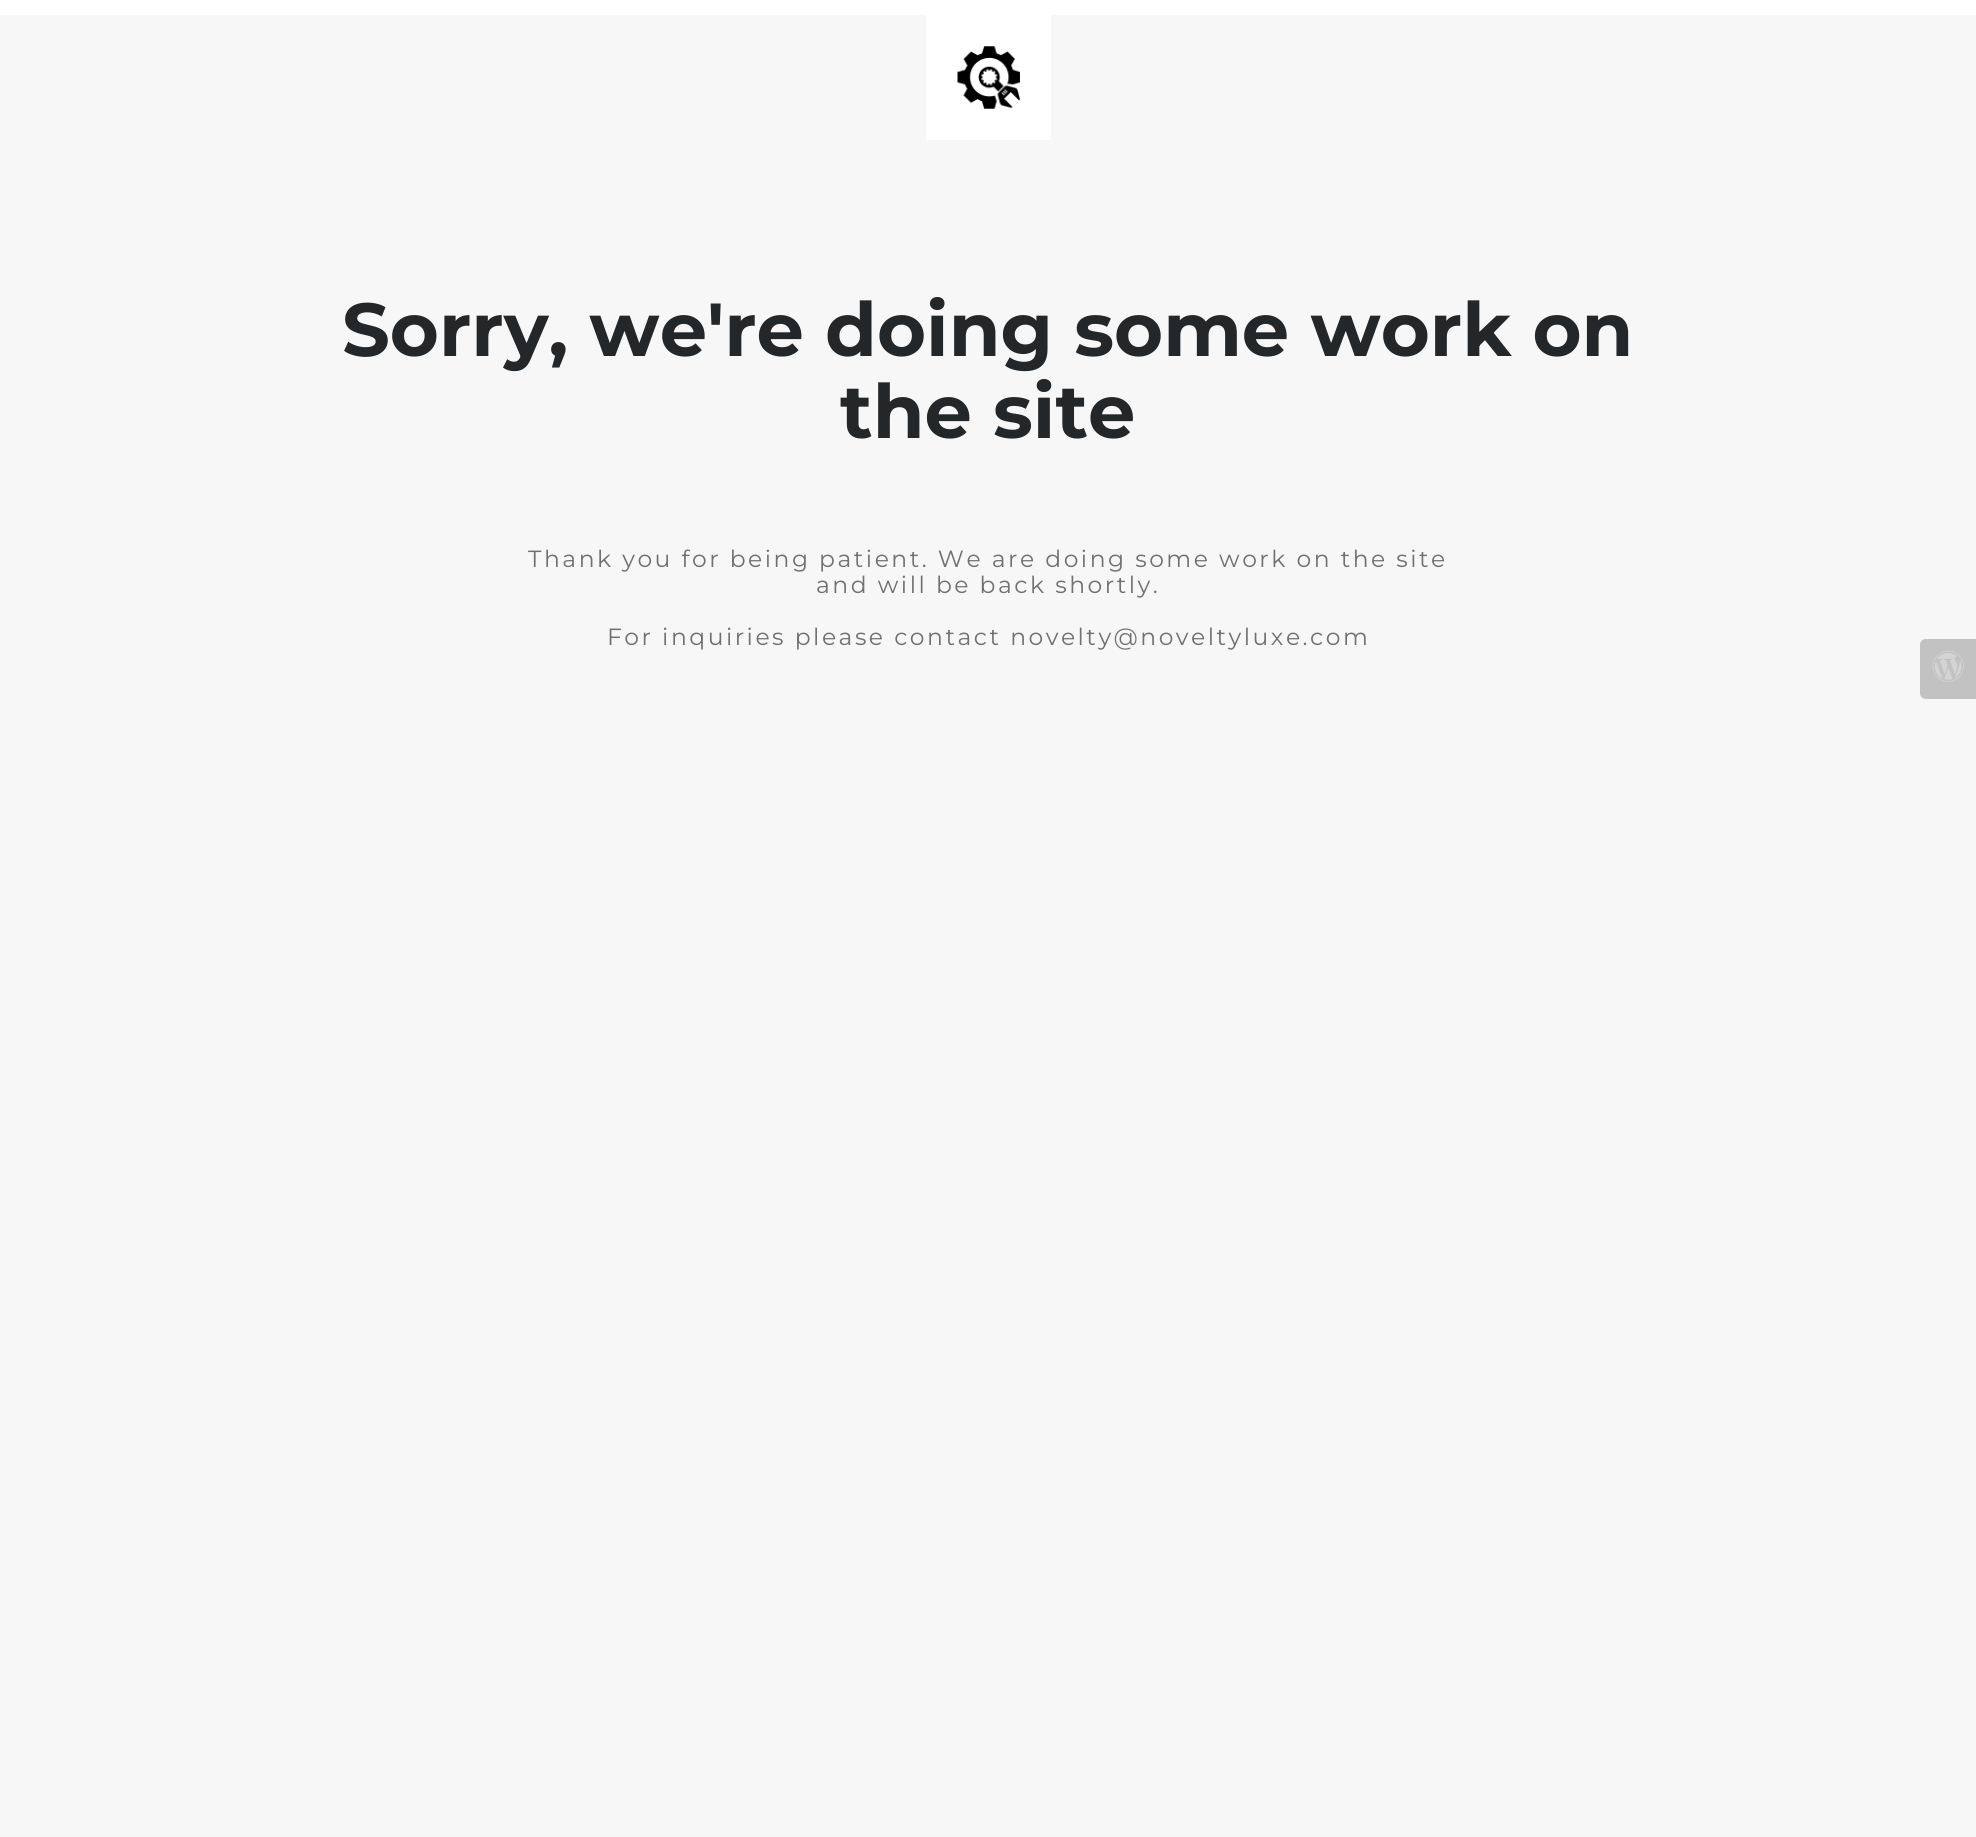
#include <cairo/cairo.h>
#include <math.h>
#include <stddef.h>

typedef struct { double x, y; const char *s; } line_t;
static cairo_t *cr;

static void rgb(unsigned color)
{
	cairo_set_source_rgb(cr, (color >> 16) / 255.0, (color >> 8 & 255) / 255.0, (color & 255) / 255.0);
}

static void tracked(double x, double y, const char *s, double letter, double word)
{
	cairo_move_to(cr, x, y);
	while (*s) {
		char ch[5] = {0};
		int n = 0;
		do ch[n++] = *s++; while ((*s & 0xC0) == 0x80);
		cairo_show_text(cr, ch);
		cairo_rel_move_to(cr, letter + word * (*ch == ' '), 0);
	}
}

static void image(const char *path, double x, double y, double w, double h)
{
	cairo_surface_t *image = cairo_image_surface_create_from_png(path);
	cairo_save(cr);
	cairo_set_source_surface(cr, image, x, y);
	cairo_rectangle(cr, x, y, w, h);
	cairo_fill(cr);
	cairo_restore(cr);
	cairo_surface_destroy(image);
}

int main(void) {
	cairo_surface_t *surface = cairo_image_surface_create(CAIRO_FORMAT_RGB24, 1976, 1837);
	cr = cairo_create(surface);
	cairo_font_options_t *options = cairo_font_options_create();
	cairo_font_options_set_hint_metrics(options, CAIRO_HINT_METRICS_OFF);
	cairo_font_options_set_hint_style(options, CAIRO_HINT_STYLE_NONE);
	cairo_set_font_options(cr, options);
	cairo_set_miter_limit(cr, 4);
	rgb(0xf7f7f7);
	cairo_paint(cr);
	rgb(0xffffff);
	cairo_rectangle(cr, 0, 0, 1976, 15);
	cairo_fill(cr);
	cairo_rectangle(cr, 926, 15, 125, 125);
	cairo_fill(cr);
	image("img/1.png", 957, 46, 63, 63);
	rgb(0xc2c2c2);
	cairo_new_path(cr);
	cairo_move_to(cr, 1926, 639);
	cairo_line_to(cr, 1976, 639);
	cairo_line_to(cr, 1976, 699);
	cairo_line_to(cr, 1926, 699);
	cairo_curve_to(cr, 1922.5, 699, 1920, 696.5, 1920, 693);
	cairo_line_to(cr, 1920, 645);
	cairo_curve_to(cr, 1920, 641.5, 1922.5, 639, 1926, 639);
	cairo_close_path(cr);
	cairo_fill(cr);
	image("img/2.png", 1932, 650, 32, 32);
	cairo_select_font_face(cr, "Montserrat Thin", CAIRO_FONT_SLANT_NORMAL, CAIRO_FONT_WEIGHT_NORMAL);
	cairo_set_font_size(cr, 75);
	rgb(0x23272a);
	cairo_move_to(cr, 342, 356);
	cairo_show_text(cr, "Sorry, we're doing some work on");
	cairo_move_to(cr, 840, 438);
	cairo_show_text(cr, "the site");
	cairo_select_font_face(cr, "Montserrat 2 Thin", CAIRO_FONT_SLANT_NORMAL, CAIRO_FONT_WEIGHT_NORMAL);
	cairo_set_font_size(cr, 23.45);
	rgb(0x707070);
	{
		static const line_t items[] = {
			{528, 567, "Thank you for being patient. We are doing some work on the site"},
			{816, 593, "and will be back shortly."},
			{607, 645, "For inquiries please contact novelty@noveltyluxe.com"},
		};
		for (size_t i = 0; i < sizeof items / sizeof *items; i++) {
			tracked(items[i].x, items[i].y, items[i].s, 2.5, 0);
		}
	}
	cairo_surface_write_to_png(surface, "page.png");
	cairo_font_options_destroy(options);
	cairo_destroy(cr);
	cairo_surface_destroy(surface);
	return 0;
}
